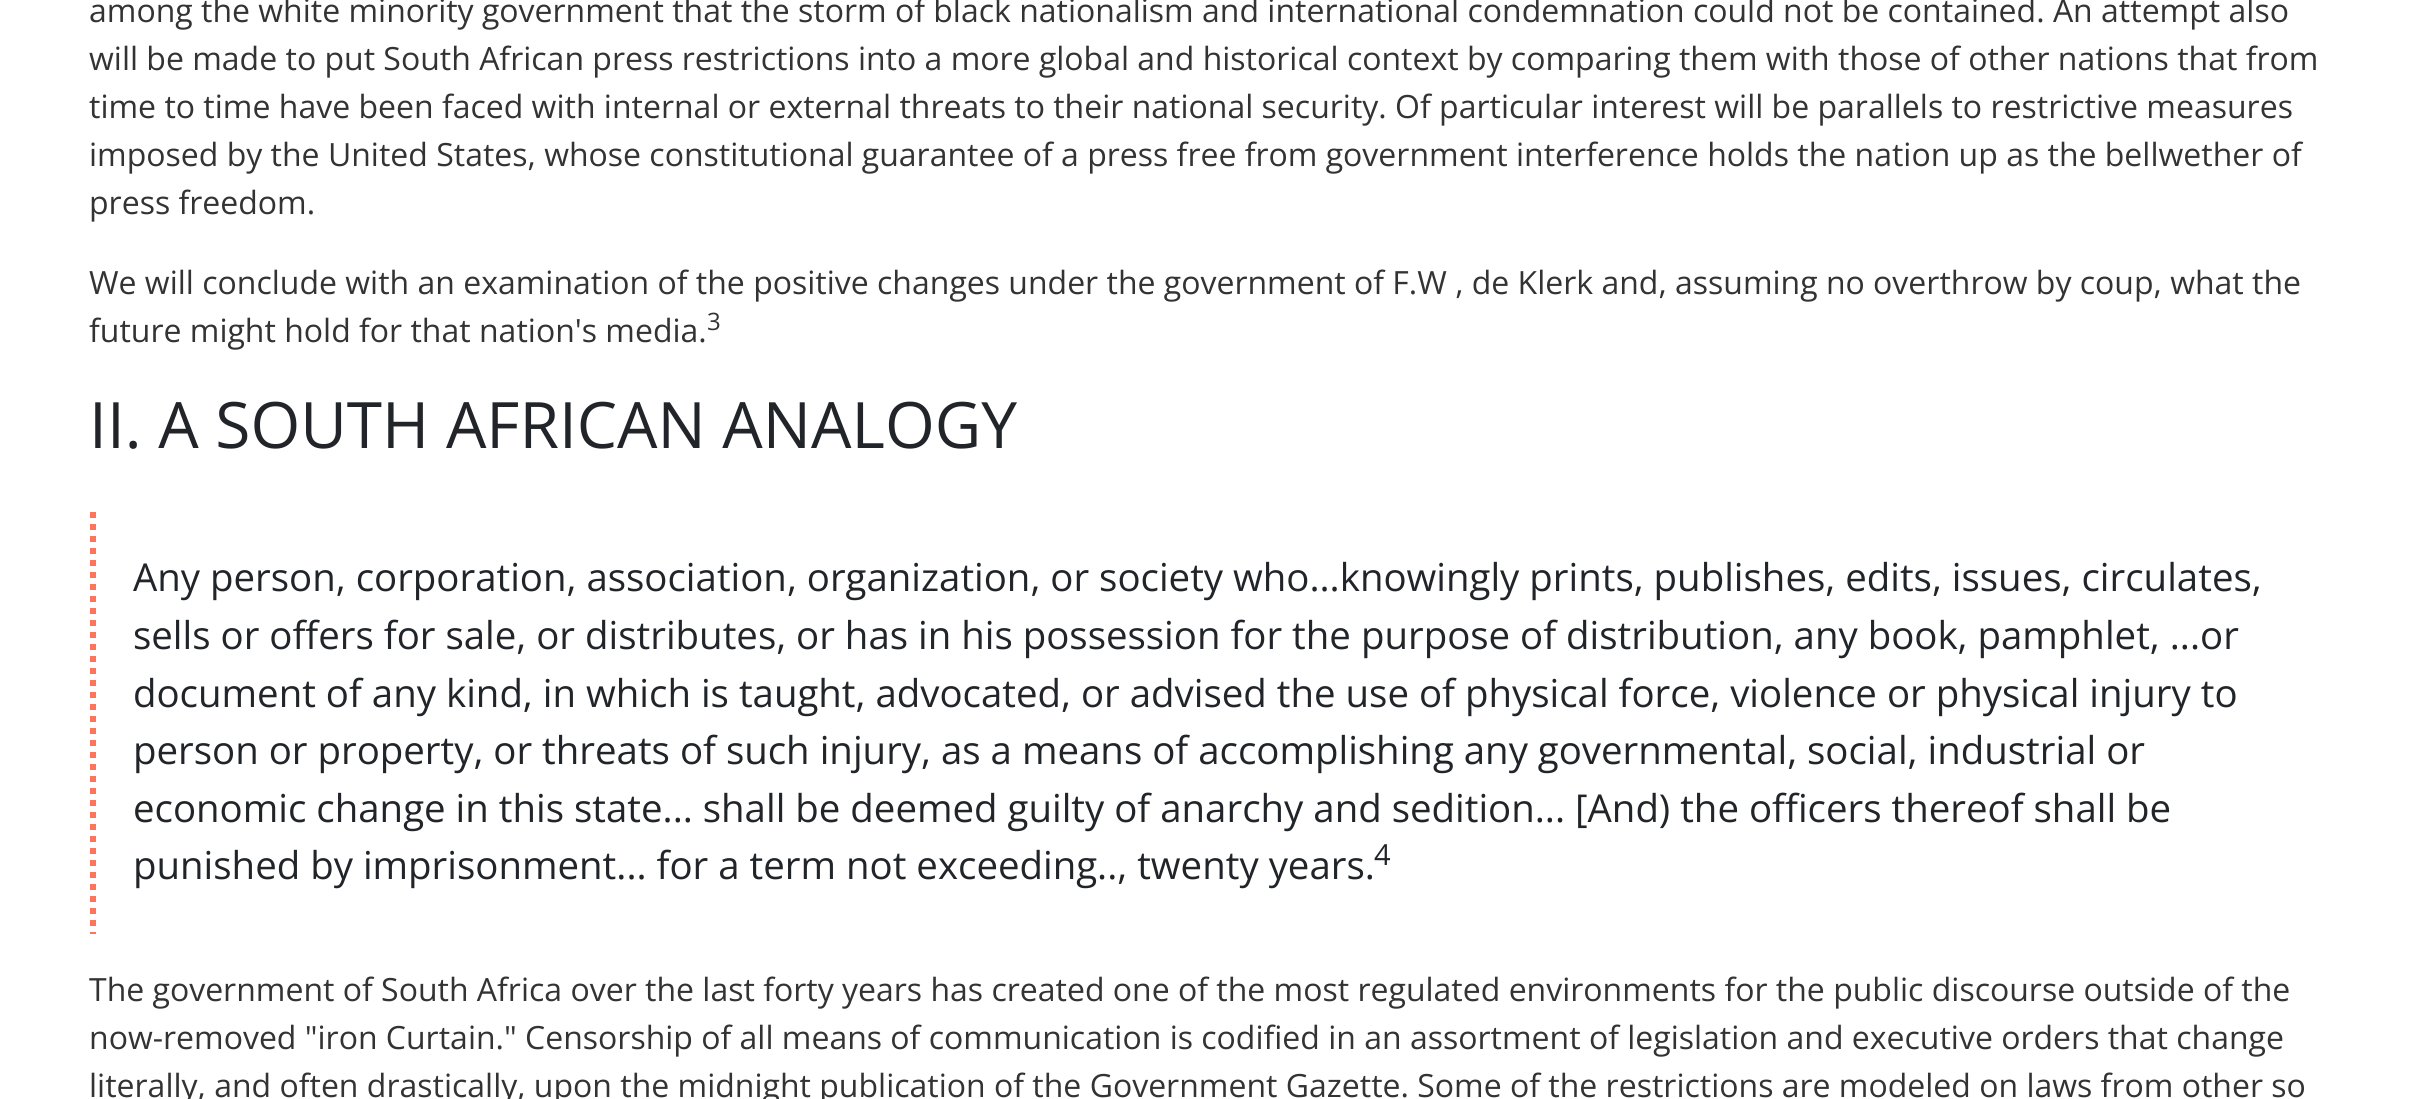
#include <cairo/cairo.h>
#include <math.h>
#include <stddef.h>

typedef struct { double x, y; const char *s; } line_t;
static cairo_t *cr;

static void rgb(unsigned color)
{
	cairo_set_source_rgb(cr, (color >> 16) / 255.0, (color >> 8 & 255) / 255.0, (color & 255) / 255.0);
}

int main(void) {
	cairo_surface_t *surface = cairo_image_surface_create(CAIRO_FORMAT_RGB24, 2417, 1099);
	cr = cairo_create(surface);
	cairo_font_options_t *options = cairo_font_options_create();
	cairo_font_options_set_hint_metrics(options, CAIRO_HINT_METRICS_OFF);
	cairo_font_options_set_hint_style(options, CAIRO_HINT_STYLE_NONE);
	cairo_set_font_options(cr, options);
	cairo_set_miter_limit(cr, 4);
	rgb(0xffffff);
	cairo_paint(cr);
	cairo_new_path(cr);
	cairo_move_to(cr, 93, 512);
	cairo_line_to(cr, 93, 934);
	rgb(0xff755b);
	cairo_set_line_width(cr, 6);
	cairo_set_dash(cr, (double[]){6, 6}, 2, 0);
	cairo_stroke(cr);
	cairo_select_font_face(cr, "Open Sans", CAIRO_FONT_SLANT_NORMAL, CAIRO_FONT_WEIGHT_NORMAL);
	cairo_set_font_size(cr, 32);
	rgb(0x333333);
	{
		static const line_t items[] = {
			{89, 22, "among the white minority government that the storm of black nationalism and international condemnation could not be contained. An attempt also"},
			{89, 70, "will be made to put South African press restrictions into a more global and historical context by comparing them with those of other nations that from"},
			{89, 118, "time to time have been faced with internal or external threats to their national security. Of particular interest will be parallels to restrictive measures"},
			{89, 166, "imposed by the United States, whose constitutional guarantee of a press free from government interference holds the nation up as the bellwether of"},
			{89, 214, "press freedom."},
			{89, 294, "We will conclude with an examination of the positive changes under the government of F.W , de Klerk and, assuming no overthrow by coup, what the"},
			{89, 342, "future might hold for that nation's media."},
		};
		for (size_t i = 0; i < sizeof items / sizeof *items; i++) {
			cairo_move_to(cr, items[i].x, items[i].y);
			cairo_show_text(cr, items[i].s);
		}
	}
	cairo_set_font_size(cr, 24);
	cairo_move_to(cr, 707, 330);
	cairo_show_text(cr, "3");
	cairo_set_font_size(cr, 64);
	rgb(0x212529);
	cairo_move_to(cr, 89, 448);
	cairo_show_text(cr, "II. A SOUTH AFRICAN ANALOGY");
	cairo_set_font_size(cr, 38.4);
	{
		static const line_t items[] = {
			{133, 591, "Any person, corporation, association, organization, or society who...knowingly prints, publishes, edits, issues, circulates,"},
			{133, 649, "sells or offers for sale, or distributes, or has in his possession for the purpose of distribution, any book, pamphlet, ...or"},
			{133, 707, "document of any kind, in which is taught, advocated, or advised the use of physical force, violence or physical injury to"},
			{133, 764, "person or property, or threats of such injury, as a means of accomplishing any governmental, social, industrial or"},
			{133, 822, "economic change in this state... shall be deemed guilty of anarchy and sedition... [And) the officers thereof shall be"},
			{133, 879, "punished by imprisonment... for a term not exceeding.., twenty years."},
		};
		for (size_t i = 0; i < sizeof items / sizeof *items; i++) {
			cairo_move_to(cr, items[i].x, items[i].y);
			cairo_show_text(cr, items[i].s);
		}
	}
	cairo_set_font_size(cr, 29);
	cairo_move_to(cr, 1374, 865);
	cairo_show_text(cr, "4");
	cairo_set_font_size(cr, 32);
	rgb(0x333333);
	{
		static const line_t items[] = {
			{89, 1001, "The government of South Africa over the last forty years has created one of the most regulated environments for the public discourse outside of the"},
			{89, 1049, "now-removed \"iron Curtain.\" Censorship of all means of communication is codified in an assortment of legislation and executive orders that change"},
			{89, 1097, "literally, and often drastically, upon the midnight publication of the Government Gazette. Some of the restrictions are modeled on laws from other so"},
		};
		for (size_t i = 0; i < sizeof items / sizeof *items; i++) {
			cairo_move_to(cr, items[i].x, items[i].y);
			cairo_show_text(cr, items[i].s);
		}
	}
	cairo_surface_write_to_png(surface, "page.png");
	cairo_font_options_destroy(options);
	cairo_destroy(cr);
	cairo_surface_destroy(surface);
	return 0;
}
